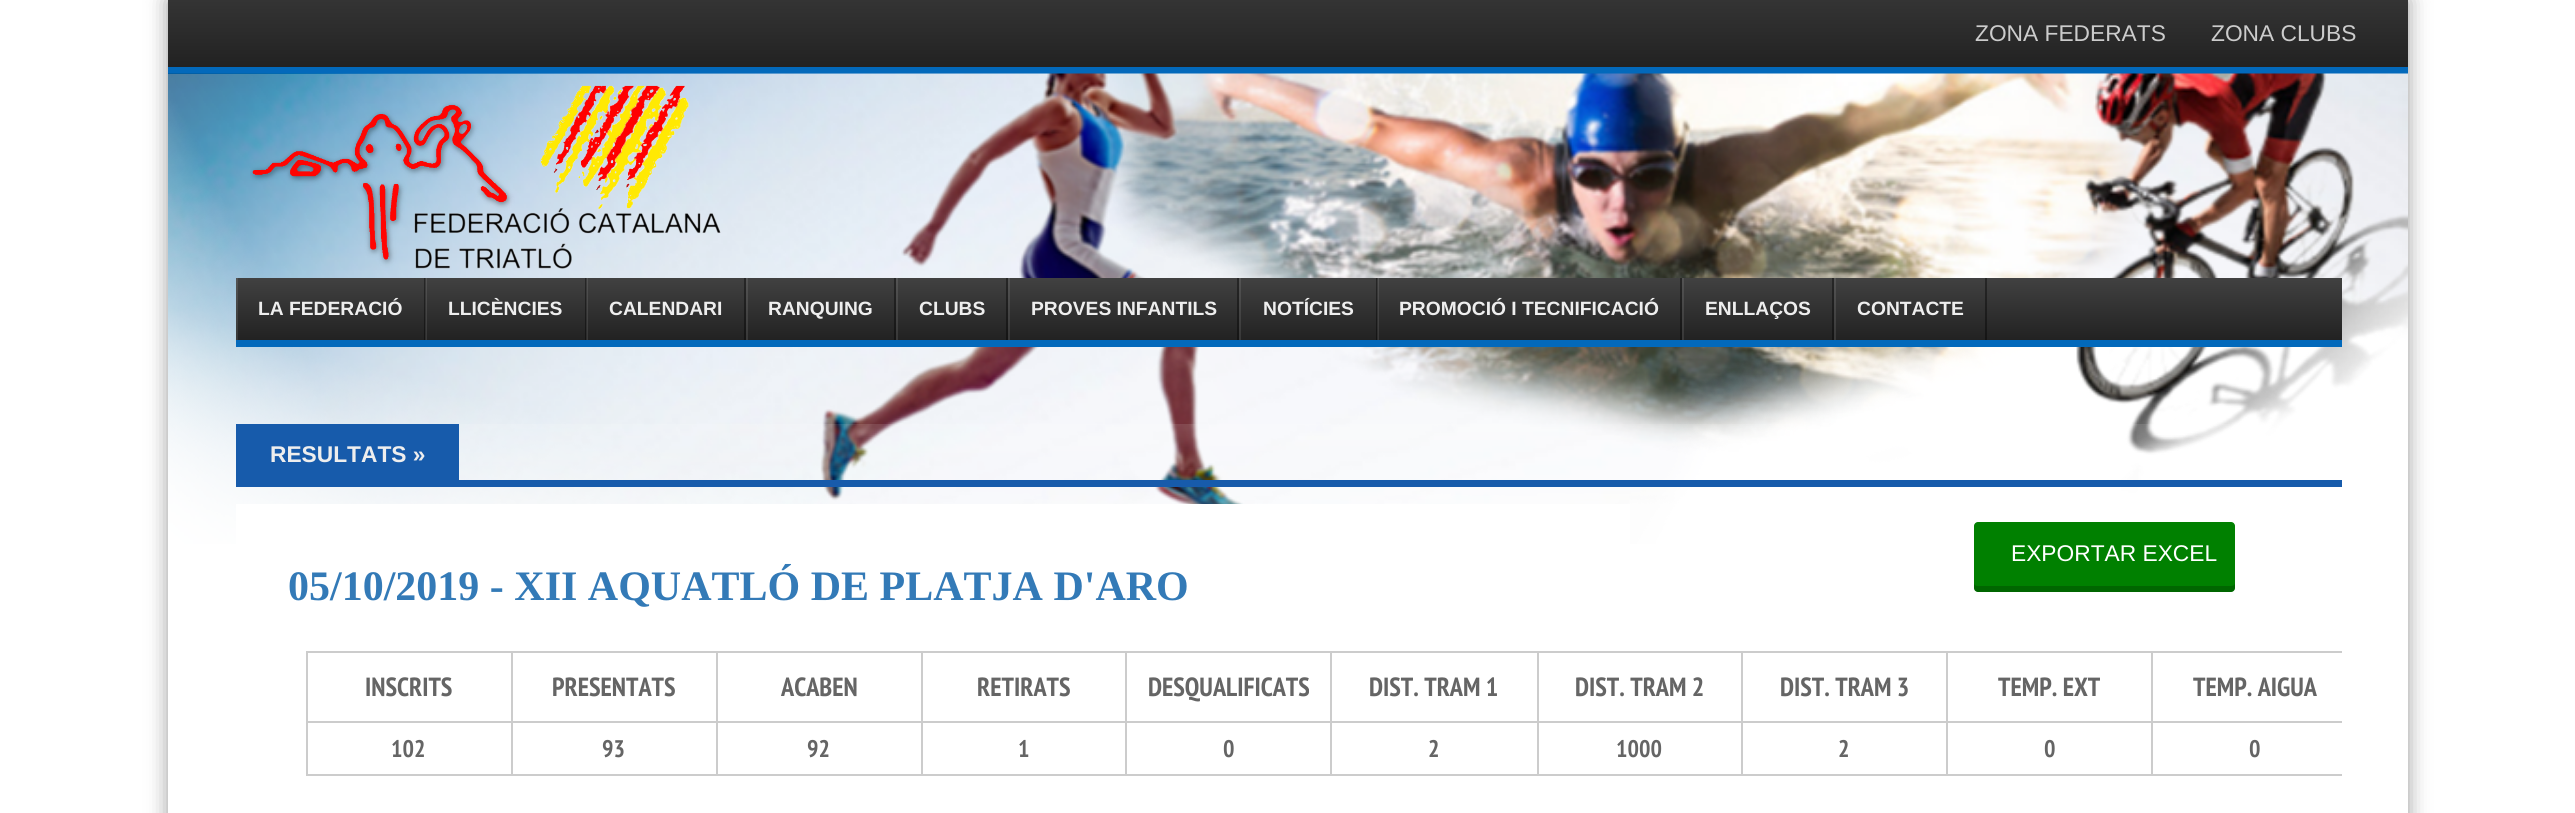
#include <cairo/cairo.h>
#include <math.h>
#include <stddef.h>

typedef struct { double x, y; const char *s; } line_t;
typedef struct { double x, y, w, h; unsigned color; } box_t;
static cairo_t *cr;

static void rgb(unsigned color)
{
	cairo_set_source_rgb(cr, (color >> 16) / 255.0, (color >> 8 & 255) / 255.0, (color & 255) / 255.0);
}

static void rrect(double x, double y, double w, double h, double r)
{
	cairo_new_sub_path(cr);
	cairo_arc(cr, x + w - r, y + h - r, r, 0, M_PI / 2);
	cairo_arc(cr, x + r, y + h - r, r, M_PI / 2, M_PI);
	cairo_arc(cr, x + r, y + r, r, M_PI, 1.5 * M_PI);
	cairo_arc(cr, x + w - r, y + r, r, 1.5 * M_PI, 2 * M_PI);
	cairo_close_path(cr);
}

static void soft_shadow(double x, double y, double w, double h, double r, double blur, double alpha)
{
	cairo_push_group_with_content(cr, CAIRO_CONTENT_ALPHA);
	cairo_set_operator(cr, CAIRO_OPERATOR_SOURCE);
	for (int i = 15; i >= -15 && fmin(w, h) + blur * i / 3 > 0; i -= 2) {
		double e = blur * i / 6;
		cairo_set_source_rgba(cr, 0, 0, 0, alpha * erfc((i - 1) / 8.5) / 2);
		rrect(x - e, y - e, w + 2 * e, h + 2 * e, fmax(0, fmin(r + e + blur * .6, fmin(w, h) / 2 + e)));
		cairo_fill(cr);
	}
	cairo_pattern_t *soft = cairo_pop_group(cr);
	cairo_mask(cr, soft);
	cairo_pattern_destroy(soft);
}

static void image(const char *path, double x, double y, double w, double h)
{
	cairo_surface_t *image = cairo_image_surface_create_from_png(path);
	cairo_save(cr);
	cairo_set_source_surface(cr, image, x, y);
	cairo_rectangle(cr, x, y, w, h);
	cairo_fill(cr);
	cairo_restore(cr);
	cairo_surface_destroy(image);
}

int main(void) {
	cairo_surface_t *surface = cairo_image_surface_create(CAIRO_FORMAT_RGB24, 2575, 813);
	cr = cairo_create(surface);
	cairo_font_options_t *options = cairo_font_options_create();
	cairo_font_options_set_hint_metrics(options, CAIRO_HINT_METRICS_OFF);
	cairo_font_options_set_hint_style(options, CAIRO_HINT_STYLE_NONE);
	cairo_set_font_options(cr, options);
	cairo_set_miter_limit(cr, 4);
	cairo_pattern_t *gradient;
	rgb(0xffffff);
	cairo_paint(cr);
	cairo_save(cr);
	cairo_set_fill_rule(cr, CAIRO_FILL_RULE_EVEN_ODD);
	cairo_new_path(cr);
	cairo_move_to(cr, 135, 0);
	cairo_line_to(cr, 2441, 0);
	cairo_line_to(cr, 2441, 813);
	cairo_line_to(cr, 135, 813);
	cairo_close_path(cr);
	cairo_move_to(cr, 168, 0);
	cairo_line_to(cr, 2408, 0);
	cairo_line_to(cr, 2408, 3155);
	cairo_line_to(cr, 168, 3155);
	cairo_close_path(cr);
	cairo_clip(cr);
	rgb(0x000000);
	soft_shadow(168, 0, 2240, 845, 0, 10.5, 0.4);
	cairo_restore(cr);
	gradient = cairo_pattern_create_linear(1288, 0, 1288, 67);
	cairo_pattern_add_color_stop_rgba(gradient, 0, 0.204, 0.204, 0.204, 1);
	cairo_pattern_add_color_stop_rgba(gradient, 1, 0.133, 0.133, 0.133, 1);
	cairo_set_source(cr, gradient);
	cairo_pattern_destroy(gradient);
	cairo_rectangle(cr, 168, 0, 2240, 67);
	cairo_fill(cr);
	rgb(0x0369bb);
	cairo_rectangle(cr, 168, 67, 2240, 7);
	cairo_fill(cr);
	image("img/1.png", 168, 73, 2240, 471);
	image("img/2.png", 250, 85, 471, 184);
	gradient = cairo_pattern_create_linear(1289, 278, 1289, 340);
	cairo_pattern_add_color_stop_rgba(gradient, 0, 0.255, 0.255, 0.255, 1);
	cairo_pattern_add_color_stop_rgba(gradient, 1, 0.133, 0.133, 0.133, 1);
	cairo_set_source(cr, gradient);
	cairo_pattern_destroy(gradient);
	cairo_rectangle(cr, 236, 278, 2106, 62);
	cairo_fill(cr);
	rgb(0x0369bb);
	cairo_rectangle(cr, 236, 340, 2106, 7);
	cairo_fill(cr);
	cairo_set_source_rgba(cr, 0, 0, 0, 0.4);
	cairo_rectangle(cr, 424, 278, 2, 62);
	cairo_fill(cr);
	cairo_set_source_rgba(cr, 1, 1, 1, 0.1);
	cairo_rectangle(cr, 236, 278, 2, 62);
	cairo_fill(cr);
	cairo_set_source_rgba(cr, 0, 0, 0, 0.4);
	cairo_rectangle(cr, 585, 278, 2, 62);
	cairo_fill(cr);
	cairo_set_source_rgba(cr, 1, 1, 1, 0.1);
	cairo_rectangle(cr, 425, 278, 2, 62);
	cairo_fill(cr);
	cairo_set_source_rgba(cr, 0, 0, 0, 0.4);
	cairo_rectangle(cr, 744, 278, 2, 62);
	cairo_fill(cr);
	cairo_set_source_rgba(cr, 1, 1, 1, 0.1);
	cairo_rectangle(cr, 586, 278, 2, 62);
	cairo_fill(cr);
	cairo_set_source_rgba(cr, 0, 0, 0, 0.4);
	cairo_rectangle(cr, 894, 278, 2, 62);
	cairo_fill(cr);
	cairo_set_source_rgba(cr, 1, 1, 1, 0.1);
	cairo_rectangle(cr, 746, 278, 2, 62);
	cairo_fill(cr);
	cairo_set_source_rgba(cr, 0, 0, 0, 0.4);
	cairo_rectangle(cr, 1006, 278, 2, 62);
	cairo_fill(cr);
	cairo_set_source_rgba(cr, 1, 1, 1, 0.1);
	cairo_rectangle(cr, 896, 278, 2, 62);
	cairo_fill(cr);
	cairo_set_source_rgba(cr, 0, 0, 0, 0.4);
	cairo_rectangle(cr, 1237, 278, 2, 62);
	cairo_fill(cr);
	cairo_set_source_rgba(cr, 1, 1, 1, 0.1);
	cairo_rectangle(cr, 1008, 278, 2, 62);
	cairo_fill(cr);
	cairo_set_source_rgba(cr, 0, 0, 0, 0.4);
	cairo_rectangle(cr, 1376, 278, 2, 62);
	cairo_fill(cr);
	cairo_set_source_rgba(cr, 1, 1, 1, 0.1);
	cairo_rectangle(cr, 1239, 278, 2, 62);
	cairo_fill(cr);
	cairo_set_source_rgba(cr, 0, 0, 0, 0.4);
	cairo_rectangle(cr, 1680, 278, 2, 62);
	cairo_fill(cr);
	cairo_set_source_rgba(cr, 1, 1, 1, 0.1);
	cairo_rectangle(cr, 1377, 278, 2, 62);
	cairo_fill(cr);
	cairo_set_source_rgba(cr, 0, 0, 0, 0.4);
	cairo_rectangle(cr, 1832, 278, 2, 62);
	cairo_fill(cr);
	cairo_set_source_rgba(cr, 1, 1, 1, 0.1);
	cairo_rectangle(cr, 1682, 278, 2, 62);
	cairo_fill(cr);
	cairo_set_source_rgba(cr, 0, 0, 0, 0.4);
	cairo_rectangle(cr, 1985, 278, 2, 62);
	cairo_fill(cr);
	cairo_set_source_rgba(cr, 1, 1, 1, 0.1);
	cairo_rectangle(cr, 1834, 278, 2, 62);
	cairo_fill(cr);
	gradient = cairo_pattern_create_linear(1289, 423, 1289, 480);
	cairo_pattern_add_color_stop_rgba(gradient, 0, 1, 1, 1, 0.12);
	cairo_pattern_add_color_stop_rgba(gradient, 1, 1, 1, 1, 0);
	cairo_set_source(cr, gradient);
	cairo_pattern_destroy(gradient);
	cairo_rectangle(cr, 459, 424, 1771, 46);
	cairo_fill(cr);
	{
		static const box_t items[] = {
			{236, 480, 2106, 7, 0x175bab},
			{236, 424, 223, 56, 0x175bab},
			{236, 504, 1394, 40, 0xffffff},
		};
		for (size_t i = 0; i < sizeof items / sizeof *items; i++) {
			rgb(items[i].color);
			cairo_rectangle(cr, items[i].x, items[i].y, items[i].w, items[i].h);
			cairo_fill(cr);
		}
	}
	rgb(0x008000);
	rrect(1974, 522, 261, 70, 4);
	cairo_fill(cr);
	cairo_set_source_rgba(cr, 0, 0, 0, 0.2);
	cairo_new_path(cr);
	cairo_move_to(cr, 1974, 583);
	cairo_line_to(cr, 1974, 588);
	cairo_curve_to(cr, 1974, 590, 1976, 592, 1978, 592);
	cairo_line_to(cr, 2231, 592);
	cairo_curve_to(cr, 2233, 592, 2235, 590, 2235, 588);
	cairo_line_to(cr, 2235, 583);
	cairo_curve_to(cr, 2235, 585, 2233, 586, 2231, 586);
	cairo_line_to(cr, 1978, 586);
	cairo_curve_to(cr, 1976, 586, 1974, 585, 1974, 583);
	cairo_close_path(cr);
	cairo_fill(cr);
	{
		static const box_t items[] = {
			{2151, 651, 191, 2, 0xcccccc},
			{2151, 721, 191, 2, 0xcccccc},
			{306, 774, 2036, 2, 0xcccccc},
			{2151, 721, 2, 54, 0xcccccc},
			{1946, 721, 207, 2, 0xcccccc},
			{2151, 651, 2, 72, 0xcccccc},
			{1946, 651, 207, 2, 0xcccccc},
			{1946, 721, 2, 54, 0xcccccc},
			{1741, 721, 207, 2, 0xcccccc},
			{1946, 651, 2, 72, 0xcccccc},
			{1741, 651, 207, 2, 0xcccccc},
			{1741, 721, 2, 54, 0xcccccc},
			{1537, 721, 206, 2, 0xcccccc},
			{1741, 651, 2, 72, 0xcccccc},
			{1537, 651, 206, 2, 0xcccccc},
			{1537, 721, 2, 54, 0xcccccc},
			{1330, 721, 208, 2, 0xcccccc},
			{1537, 651, 2, 72, 0xcccccc},
			{1330, 651, 208, 2, 0xcccccc},
			{1330, 721, 2, 54, 0xcccccc},
			{1125, 721, 207, 2, 0xcccccc},
			{1330, 651, 2, 72, 0xcccccc},
			{1125, 651, 207, 2, 0xcccccc},
			{1125, 721, 2, 54, 0xcccccc},
			{921, 721, 206, 2, 0xcccccc},
			{1125, 651, 2, 72, 0xcccccc},
			{921, 651, 206, 2, 0xcccccc},
			{921, 721, 2, 54, 0xcccccc},
			{716, 721, 206, 2, 0xcccccc},
			{921, 651, 2, 72, 0xcccccc},
			{716, 651, 206, 2, 0xcccccc},
			{716, 721, 2, 54, 0xcccccc},
			{511, 721, 207, 2, 0xcccccc},
			{716, 651, 2, 72, 0xcccccc},
			{511, 651, 207, 2, 0xcccccc},
			{306, 721, 2, 54, 0xcccccc},
			{511, 721, 2, 54, 0xcccccc},
			{306, 721, 207, 2, 0xcccccc},
			{511, 651, 2, 72, 0xcccccc},
			{306, 651, 207, 2, 0xcccccc},
			{306, 651, 2, 72, 0xcccccc},
		};
		for (size_t i = 0; i < sizeof items / sizeof *items; i++) {
			rgb(items[i].color);
			cairo_rectangle(cr, items[i].x, items[i].y, items[i].w, items[i].h);
			cairo_fill(cr);
		}
	}
	cairo_select_font_face(cr, "Liberation Sans", CAIRO_FONT_SLANT_NORMAL, CAIRO_FONT_WEIGHT_NORMAL);
	cairo_set_font_size(cr, 22.75);
	cairo_move_to(cr, 1975, 41);
	cairo_show_text(cr, "ZONA FEDERATS");
	cairo_move_to(cr, 2211, 41);
	cairo_show_text(cr, "ZONA CLUBS");
	cairo_select_font_face(cr, "Liberation Sans", CAIRO_FONT_SLANT_NORMAL, CAIRO_FONT_WEIGHT_BOLD);
	cairo_set_font_size(cr, 19.25);
	rgb(0xeeeeee);
	{
		static const line_t items[] = {
			{258, 315, "LA FEDERACIÓ"},
			{448, 315, "LLICÈNCIES"},
			{609, 315, "CALENDARI"},
			{768, 315, "RANQUING"},
			{919, 315, "CLUBS"},
			{1031, 315, "PROVES INFANTILS"},
			{1263, 315, "NOTÍCIES"},
			{1399, 315, "PROMOCIÓ I TECNIFICACIÓ"},
			{1705, 315, "ENLLAÇOS"},
			{1857, 315, "CONTACTE"},
		};
		for (size_t i = 0; i < sizeof items / sizeof *items; i++) {
			cairo_move_to(cr, items[i].x, items[i].y);
			cairo_show_text(cr, items[i].s);
		}
	}
	cairo_set_font_size(cr, 22.75);
	cairo_move_to(cr, 270, 462);
	cairo_show_text(cr, "RESULTATS »");
	cairo_select_font_face(cr, "Liberation Sans", CAIRO_FONT_SLANT_NORMAL, CAIRO_FONT_WEIGHT_NORMAL);
	rgb(0xffffff);
	cairo_move_to(cr, 2011, 561);
	cairo_show_text(cr, "EXPORTAR EXCEL");
	cairo_select_font_face(cr, "Liberation Serif", CAIRO_FONT_SLANT_NORMAL, CAIRO_FONT_WEIGHT_BOLD);
	cairo_set_font_size(cr, 42);
	rgb(0x337ab7);
	cairo_move_to(cr, 288, 600);
	cairo_show_text(cr, "05/10/2019 - XII AQUATLÓ DE PLATJA D'ARO");
	cairo_select_font_face(cr, "PT Sans Narrow", CAIRO_FONT_SLANT_NORMAL, CAIRO_FONT_WEIGHT_BOLD);
	cairo_set_font_size(cr, 26.25);
	rgb(0x656565);
	{
		static const line_t items[] = {
			{365, 696, "INSCRITS"},
			{552, 696, "PRESENTATS"},
			{781, 696, "ACABEN"},
			{977, 696, "RETIRATS"},
			{1148, 696, "DESQUALIFICATS"},
			{1369, 696, "DIST. TRAM 1"},
			{1575, 696, "DIST. TRAM 2"},
			{1780, 696, "DIST. TRAM 3"},
			{1998, 696, "TEMP. EXT"},
			{2193, 696, "TEMP. AIGUA"},
		};
		for (size_t i = 0; i < sizeof items / sizeof *items; i++) {
			cairo_move_to(cr, items[i].x, items[i].y);
			cairo_show_text(cr, items[i].s);
		}
	}
	cairo_set_font_size(cr, 24);
	{
		static const line_t items[] = {
			{391, 757, "102"},
			{602, 757, "93"},
			{807, 757, "92"},
			{1018, 757, "1"},
			{1223, 757, "0"},
			{1428, 757, "2"},
			{1616, 757, "1000"},
			{1838, 757, "2"},
			{2044, 757, "0"},
			{2249, 757, "0"},
		};
		for (size_t i = 0; i < sizeof items / sizeof *items; i++) {
			cairo_move_to(cr, items[i].x, items[i].y);
			cairo_show_text(cr, items[i].s);
		}
	}
	cairo_surface_write_to_png(surface, "page.png");
	cairo_font_options_destroy(options);
	cairo_destroy(cr);
	cairo_surface_destroy(surface);
	return 0;
}
